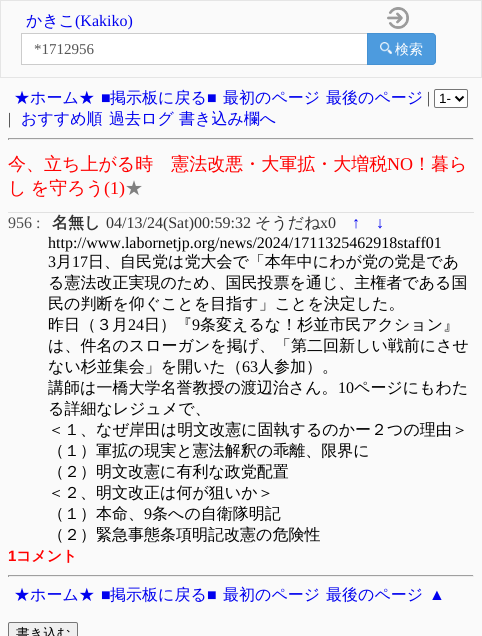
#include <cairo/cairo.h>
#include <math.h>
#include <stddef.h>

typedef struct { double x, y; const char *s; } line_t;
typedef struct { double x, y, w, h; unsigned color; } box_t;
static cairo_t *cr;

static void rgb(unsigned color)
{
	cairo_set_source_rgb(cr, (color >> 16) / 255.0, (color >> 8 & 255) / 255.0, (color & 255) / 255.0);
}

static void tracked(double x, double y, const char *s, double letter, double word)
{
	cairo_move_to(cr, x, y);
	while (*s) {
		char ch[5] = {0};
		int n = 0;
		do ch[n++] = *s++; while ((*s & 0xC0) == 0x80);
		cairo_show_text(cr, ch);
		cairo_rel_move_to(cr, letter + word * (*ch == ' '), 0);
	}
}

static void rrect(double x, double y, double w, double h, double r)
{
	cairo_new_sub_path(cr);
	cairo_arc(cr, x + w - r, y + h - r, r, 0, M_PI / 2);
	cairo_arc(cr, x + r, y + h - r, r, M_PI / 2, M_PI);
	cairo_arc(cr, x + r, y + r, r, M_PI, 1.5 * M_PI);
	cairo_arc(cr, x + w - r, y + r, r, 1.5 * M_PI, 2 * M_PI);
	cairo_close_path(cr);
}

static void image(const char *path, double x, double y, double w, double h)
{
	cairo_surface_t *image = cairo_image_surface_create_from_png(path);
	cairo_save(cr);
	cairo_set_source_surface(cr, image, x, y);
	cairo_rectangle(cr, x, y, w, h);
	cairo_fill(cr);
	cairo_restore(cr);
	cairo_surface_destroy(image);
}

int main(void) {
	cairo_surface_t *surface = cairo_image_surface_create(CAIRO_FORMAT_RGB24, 482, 636);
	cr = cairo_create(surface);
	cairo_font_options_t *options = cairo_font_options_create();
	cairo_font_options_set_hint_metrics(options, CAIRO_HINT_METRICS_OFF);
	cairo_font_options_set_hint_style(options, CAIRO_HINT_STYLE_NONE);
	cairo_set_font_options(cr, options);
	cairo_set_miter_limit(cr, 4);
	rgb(0xfafafa);
	cairo_paint(cr);
	cairo_rectangle(cr, 0.5, 0.5, 481, 77);
	rgb(0xe5e5e5);
	cairo_set_line_width(cr, 1);
	cairo_stroke(cr);
	image("img/1.png", 387, 7, 22, 22);
	rgb(0xffffff);
	cairo_rectangle(cr, 22, 34, 345, 30);
	cairo_fill(cr);
	cairo_rectangle(cr, 21.5, 33.5, 350, 31);
	rgb(0xcccccc);
	cairo_stroke(cr);
	rgb(0x4d9bde);
	cairo_new_path(cr);
	cairo_move_to(cr, 367, 33);
	cairo_line_to(cr, 432, 33);
	cairo_curve_to(cr, 434, 33, 436, 35, 436, 37);
	cairo_line_to(cr, 436, 61);
	cairo_curve_to(cr, 436, 63, 434, 65, 432, 65);
	cairo_line_to(cr, 367, 65);
	cairo_close_path(cr);
	cairo_fill(cr);
	cairo_new_path(cr);
	cairo_move_to(cr, 367.5, 33.5);
	cairo_line_to(cr, 432, 33.5);
	cairo_curve_to(cr, 434, 33.5, 435.5, 35, 435.5, 37);
	cairo_line_to(cr, 435.5, 61);
	cairo_curve_to(cr, 435.5, 63, 434, 64.5, 432, 64.5);
	cairo_line_to(cr, 367.5, 64.5);
	cairo_close_path(cr);
	cairo_set_source_rgba(cr, 0.259, 0.553, 0.808, 0.7);
	cairo_stroke(cr);
	image("img/2.png", 380, 42, 12, 12);
	rgb(0xffffff);
	rrect(434.5, 89.5, 33, 18, 1.5);
	cairo_fill_preserve(cr);
	rgb(0x767676);
	cairo_stroke(cr);
	cairo_new_path(cr);
	cairo_move_to(cr, 455.5, 96.5);
	cairo_line_to(cr, 459.5, 100.5);
	cairo_line_to(cr, 463.5, 96.5);
	rgb(0x000000);
	cairo_set_line_width(cr, 2);
	cairo_stroke(cr);
	{
		static const box_t items[] = {
			{8, 138, 466, 1, 0x9f9f9f},
			{473, 138, 1, 2, 0xeeeeee},
			{8, 139, 466, 1, 0xeeeeee},
			{8, 138, 1, 2, 0x9f9f9f},
			{8, 212, 466, 1, 0xe1e1e1},
			{8, 575, 466, 1, 0x9f9f9f},
			{473, 575, 1, 2, 0xeeeeee},
			{8, 576, 466, 1, 0xeeeeee},
			{8, 575, 1, 2, 0x9f9f9f},
		};
		for (size_t i = 0; i < sizeof items / sizeof *items; i++) {
			rgb(items[i].color);
			cairo_rectangle(cr, items[i].x, items[i].y, items[i].w, items[i].h);
			cairo_fill(cr);
		}
	}
	rgb(0xefefef);
	rrect(8.5, 622.5, 69, 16, 1.5);
	cairo_fill_preserve(cr);
	rgb(0x767676);
	cairo_set_line_width(cr, 1);
	cairo_stroke(cr);
	cairo_select_font_face(cr, "WenQuanYi Zen Hei Medium", CAIRO_FONT_SLANT_NORMAL, CAIRO_FONT_WEIGHT_NORMAL);
	cairo_set_font_size(cr, 16);
	rgb(0x0000ee);
	cairo_move_to(cr, 26, 26);
	cairo_show_text(cr, "かきこ");
	cairo_select_font_face(cr, "Liberation Serif", CAIRO_FONT_SLANT_NORMAL, CAIRO_FONT_WEIGHT_NORMAL);
	cairo_move_to(cr, 75, 26);
	cairo_show_text(cr, "(Kakiko)");
	cairo_set_font_size(cr, 15);
	rgb(0x555555);
	cairo_move_to(cr, 34, 54);
	cairo_show_text(cr, "*1712956");
	cairo_select_font_face(cr, "WenQuanYi Zen Hei Medium", CAIRO_FONT_SLANT_NORMAL, CAIRO_FONT_WEIGHT_NORMAL);
	cairo_set_font_size(cr, 14);
	rgb(0xffffff);
	cairo_move_to(cr, 395, 54);
	cairo_show_text(cr, "検索");
	cairo_set_font_size(cr, 16);
	rgb(0x0000ee);
	cairo_move_to(cr, 14, 103);
	cairo_show_text(cr, "★ホーム★");
	cairo_select_font_face(cr, "Liberation Serif", CAIRO_FONT_SLANT_NORMAL, CAIRO_FONT_WEIGHT_NORMAL);
	cairo_move_to(cr, 101, 103);
	cairo_show_text(cr, "■");
	cairo_select_font_face(cr, "WenQuanYi Zen Hei Medium", CAIRO_FONT_SLANT_NORMAL, CAIRO_FONT_WEIGHT_NORMAL);
	cairo_move_to(cr, 110, 103);
	cairo_show_text(cr, "掲示板に戻る");
	cairo_select_font_face(cr, "Liberation Serif", CAIRO_FONT_SLANT_NORMAL, CAIRO_FONT_WEIGHT_NORMAL);
	cairo_move_to(cr, 207, 103);
	cairo_show_text(cr, "■");
	cairo_select_font_face(cr, "WenQuanYi Zen Hei Medium", CAIRO_FONT_SLANT_NORMAL, CAIRO_FONT_WEIGHT_NORMAL);
	cairo_move_to(cr, 223, 103);
	cairo_show_text(cr, "最初のページ");
	cairo_move_to(cr, 326, 103);
	cairo_show_text(cr, "最後のページ");
	cairo_select_font_face(cr, "Liberation Serif", CAIRO_FONT_SLANT_NORMAL, CAIRO_FONT_WEIGHT_NORMAL);
	rgb(0x333333);
	cairo_move_to(cr, 427, 103);
	cairo_show_text(cr, "|");
	cairo_select_font_face(cr, "Liberation Sans", CAIRO_FONT_SLANT_NORMAL, CAIRO_FONT_WEIGHT_NORMAL);
	cairo_set_font_size(cr, 13.5);
	rgb(0x000000);
	cairo_move_to(cr, 439, 103);
	cairo_show_text(cr, "1-");
	cairo_select_font_face(cr, "Liberation Serif", CAIRO_FONT_SLANT_NORMAL, CAIRO_FONT_WEIGHT_NORMAL);
	cairo_set_font_size(cr, 16);
	rgb(0x333333);
	cairo_move_to(cr, 8, 124);
	cairo_show_text(cr, "|");
	cairo_select_font_face(cr, "WenQuanYi Zen Hei Medium", CAIRO_FONT_SLANT_NORMAL, CAIRO_FONT_WEIGHT_NORMAL);
	rgb(0x0000ee);
	{
		static const line_t items[] = {
			{21, 124, "おすすめ順"},
			{109, 124, "過去ログ"},
			{179, 124, "書き込み欄へ"},
		};
		for (size_t i = 0; i < sizeof items / sizeof *items; i++) {
			cairo_move_to(cr, items[i].x, items[i].y);
			cairo_show_text(cr, items[i].s);
		}
	}
	cairo_set_font_size(cr, 18);
	rgb(0xff0000);
	cairo_move_to(cr, 8, 170);
	cairo_show_text(cr, "今、立ち上がる時　憲法改悪・大軍拡・大増税");
	cairo_select_font_face(cr, "Liberation Serif", CAIRO_FONT_SLANT_NORMAL, CAIRO_FONT_WEIGHT_NORMAL);
	cairo_move_to(cr, 387, 170);
	cairo_show_text(cr, "NO");
	cairo_select_font_face(cr, "WenQuanYi Zen Hei Medium", CAIRO_FONT_SLANT_NORMAL, CAIRO_FONT_WEIGHT_NORMAL);
	cairo_move_to(cr, 413, 170);
	cairo_show_text(cr, "！暮ら");
	tracked(8, 194, "し を守ろう", 0, -1);
	cairo_select_font_face(cr, "Liberation Serif", CAIRO_FONT_SLANT_NORMAL, CAIRO_FONT_WEIGHT_NORMAL);
	cairo_move_to(cr, 104, 194);
	cairo_show_text(cr, "(1)");
	cairo_select_font_face(cr, "WenQuanYi Zen Hei Medium", CAIRO_FONT_SLANT_NORMAL, CAIRO_FONT_WEIGHT_NORMAL);
	rgb(0x808080);
	cairo_move_to(cr, 125, 194);
	cairo_show_text(cr, "★");
	cairo_select_font_face(cr, "Liberation Serif", CAIRO_FONT_SLANT_NORMAL, CAIRO_FONT_WEIGHT_NORMAL);
	cairo_set_font_size(cr, 16);
	rgb(0x4d4d4d);
	cairo_move_to(cr, 8, 228);
	cairo_show_text(cr, "956 :");
	cairo_select_font_face(cr, "WenQuanYi Zen Hei", CAIRO_FONT_SLANT_NORMAL, CAIRO_FONT_WEIGHT_BOLD);
	rgb(0x333333);
	cairo_move_to(cr, 52, 228);
	cairo_show_text(cr, "名無し");
	cairo_select_font_face(cr, "Liberation Serif", CAIRO_FONT_SLANT_NORMAL, CAIRO_FONT_WEIGHT_NORMAL);
	cairo_move_to(cr, 106, 228);
	cairo_show_text(cr, "04/13/24(Sat)00:59:32");
	cairo_select_font_face(cr, "WenQuanYi Zen Hei Medium", CAIRO_FONT_SLANT_NORMAL, CAIRO_FONT_WEIGHT_NORMAL);
	cairo_move_to(cr, 255, 228);
	cairo_show_text(cr, "そうだね");
	cairo_select_font_face(cr, "Liberation Serif", CAIRO_FONT_SLANT_NORMAL, CAIRO_FONT_WEIGHT_NORMAL);
	cairo_move_to(cr, 320, 228);
	cairo_show_text(cr, "x0");
	rgb(0x0000ee);
	cairo_move_to(cr, 352, 228);
	cairo_show_text(cr, "↑");
	cairo_move_to(cr, 376, 228);
	cairo_show_text(cr, "↓");
	rgb(0x000000);
	cairo_move_to(cr, 48, 248);
	cairo_show_text(cr, "http://www.labornetjp.org/news/2024/1711325462918staff01");
	cairo_move_to(cr, 48, 267);
	cairo_show_text(cr, "3");
	cairo_select_font_face(cr, "WenQuanYi Zen Hei Medium", CAIRO_FONT_SLANT_NORMAL, CAIRO_FONT_WEIGHT_NORMAL);
	cairo_move_to(cr, 56, 267);
	cairo_show_text(cr, "月");
	cairo_select_font_face(cr, "Liberation Serif", CAIRO_FONT_SLANT_NORMAL, CAIRO_FONT_WEIGHT_NORMAL);
	cairo_move_to(cr, 72, 267);
	cairo_show_text(cr, "17");
	cairo_select_font_face(cr, "WenQuanYi Zen Hei Medium", CAIRO_FONT_SLANT_NORMAL, CAIRO_FONT_WEIGHT_NORMAL);
	{
		static const line_t items[] = {
			{88, 267, "日、自民党は党大会で「本年中にわが党の党是であ"},
			{48, 288, "る憲法改正実現のため、国民投票を通じ、主権者である国"},
			{48, 309, "民の判断を仰ぐことを目指す」ことを決定した。"},
			{48, 330, "昨日（３月"},
		};
		for (size_t i = 0; i < sizeof items / sizeof *items; i++) {
			cairo_move_to(cr, items[i].x, items[i].y);
			cairo_show_text(cr, items[i].s);
		}
	}
	cairo_select_font_face(cr, "Liberation Serif", CAIRO_FONT_SLANT_NORMAL, CAIRO_FONT_WEIGHT_NORMAL);
	cairo_move_to(cr, 128, 330);
	cairo_show_text(cr, "24");
	cairo_select_font_face(cr, "WenQuanYi Zen Hei Medium", CAIRO_FONT_SLANT_NORMAL, CAIRO_FONT_WEIGHT_NORMAL);
	cairo_move_to(cr, 144, 330);
	cairo_show_text(cr, "日）『");
	cairo_select_font_face(cr, "Liberation Serif", CAIRO_FONT_SLANT_NORMAL, CAIRO_FONT_WEIGHT_NORMAL);
	cairo_move_to(cr, 192, 330);
	cairo_show_text(cr, "9");
	cairo_select_font_face(cr, "WenQuanYi Zen Hei Medium", CAIRO_FONT_SLANT_NORMAL, CAIRO_FONT_WEIGHT_NORMAL);
	{
		static const line_t items[] = {
			{200, 330, "条変えるな！杉並市民アクション』"},
			{48, 351, "は、件名のスローガンを掲げ、「第二回新しい戦前にさせ"},
			{48, 372, "ない杉並集会」を開いた（"},
		};
		for (size_t i = 0; i < sizeof items / sizeof *items; i++) {
			cairo_move_to(cr, items[i].x, items[i].y);
			cairo_show_text(cr, items[i].s);
		}
	}
	cairo_select_font_face(cr, "Liberation Serif", CAIRO_FONT_SLANT_NORMAL, CAIRO_FONT_WEIGHT_NORMAL);
	cairo_move_to(cr, 242, 372);
	cairo_show_text(cr, "63");
	cairo_select_font_face(cr, "WenQuanYi Zen Hei Medium", CAIRO_FONT_SLANT_NORMAL, CAIRO_FONT_WEIGHT_NORMAL);
	cairo_move_to(cr, 258, 372);
	cairo_show_text(cr, "人参加）。");
	cairo_move_to(cr, 48, 393);
	cairo_show_text(cr, "講師は一橋大学名誉教授の渡辺治さん。");
	cairo_select_font_face(cr, "Liberation Serif", CAIRO_FONT_SLANT_NORMAL, CAIRO_FONT_WEIGHT_NORMAL);
	cairo_move_to(cr, 338, 393);
	cairo_show_text(cr, "10");
	cairo_select_font_face(cr, "WenQuanYi Zen Hei Medium", CAIRO_FONT_SLANT_NORMAL, CAIRO_FONT_WEIGHT_NORMAL);
	{
		static const line_t items[] = {
			{354, 393, "ページにもわた"},
			{48, 414, "る詳細なレジュメで、"},
			{48, 435, "＜１、なぜ岸田は明文改憲に固執するのかー２つの理由＞"},
			{48, 456, "（１）軍拡の現実と憲法解釈の乖離、限界に"},
			{48, 477, "（２）明文改憲に有利な政党配置"},
			{48, 498, "＜２、明文改正は何が狙いか＞"},
			{48, 519, "（１）本命、"},
		};
		for (size_t i = 0; i < sizeof items / sizeof *items; i++) {
			cairo_move_to(cr, items[i].x, items[i].y);
			cairo_show_text(cr, items[i].s);
		}
	}
	cairo_select_font_face(cr, "Liberation Serif", CAIRO_FONT_SLANT_NORMAL, CAIRO_FONT_WEIGHT_NORMAL);
	cairo_move_to(cr, 144, 519);
	cairo_show_text(cr, "9");
	cairo_select_font_face(cr, "WenQuanYi Zen Hei Medium", CAIRO_FONT_SLANT_NORMAL, CAIRO_FONT_WEIGHT_NORMAL);
	cairo_move_to(cr, 152, 519);
	cairo_show_text(cr, "条への自衛隊明記");
	cairo_move_to(cr, 48, 540);
	cairo_show_text(cr, "（２）緊急事態条項明記改憲の危険性");
	cairo_select_font_face(cr, "Liberation Sans", CAIRO_FONT_SLANT_NORMAL, CAIRO_FONT_WEIGHT_BOLD);
	cairo_set_font_size(cr, 15);
	rgb(0xff0000);
	cairo_move_to(cr, 8, 561);
	cairo_show_text(cr, "1");
	cairo_select_font_face(cr, "WenQuanYi Zen Hei", CAIRO_FONT_SLANT_NORMAL, CAIRO_FONT_WEIGHT_BOLD);
	cairo_move_to(cr, 16, 561);
	cairo_show_text(cr, "コメント");
	cairo_select_font_face(cr, "WenQuanYi Zen Hei Medium", CAIRO_FONT_SLANT_NORMAL, CAIRO_FONT_WEIGHT_NORMAL);
	cairo_set_font_size(cr, 16);
	rgb(0x0000ee);
	cairo_move_to(cr, 14, 600);
	cairo_show_text(cr, "★ホーム★");
	cairo_select_font_face(cr, "Liberation Serif", CAIRO_FONT_SLANT_NORMAL, CAIRO_FONT_WEIGHT_NORMAL);
	cairo_move_to(cr, 101, 600);
	cairo_show_text(cr, "■");
	cairo_select_font_face(cr, "WenQuanYi Zen Hei Medium", CAIRO_FONT_SLANT_NORMAL, CAIRO_FONT_WEIGHT_NORMAL);
	cairo_move_to(cr, 110, 600);
	cairo_show_text(cr, "掲示板に戻る");
	cairo_select_font_face(cr, "Liberation Serif", CAIRO_FONT_SLANT_NORMAL, CAIRO_FONT_WEIGHT_NORMAL);
	cairo_move_to(cr, 207, 600);
	cairo_show_text(cr, "■");
	cairo_select_font_face(cr, "WenQuanYi Zen Hei Medium", CAIRO_FONT_SLANT_NORMAL, CAIRO_FONT_WEIGHT_NORMAL);
	cairo_move_to(cr, 223, 600);
	cairo_show_text(cr, "最初のページ");
	cairo_move_to(cr, 326, 600);
	cairo_show_text(cr, "最後のページ");
	cairo_select_font_face(cr, "Liberation Serif", CAIRO_FONT_SLANT_NORMAL, CAIRO_FONT_WEIGHT_NORMAL);
	cairo_move_to(cr, 429, 600);
	cairo_show_text(cr, "▲");
	cairo_select_font_face(cr, "WenQuanYi Zen Hei Medium", CAIRO_FONT_SLANT_NORMAL, CAIRO_FONT_WEIGHT_NORMAL);
	cairo_set_font_size(cr, 13.5);
	rgb(0x000000);
	cairo_move_to(cr, 16, 638);
	cairo_show_text(cr, "書き込む");
	cairo_surface_write_to_png(surface, "page.png");
	cairo_font_options_destroy(options);
	cairo_destroy(cr);
	cairo_surface_destroy(surface);
	return 0;
}
